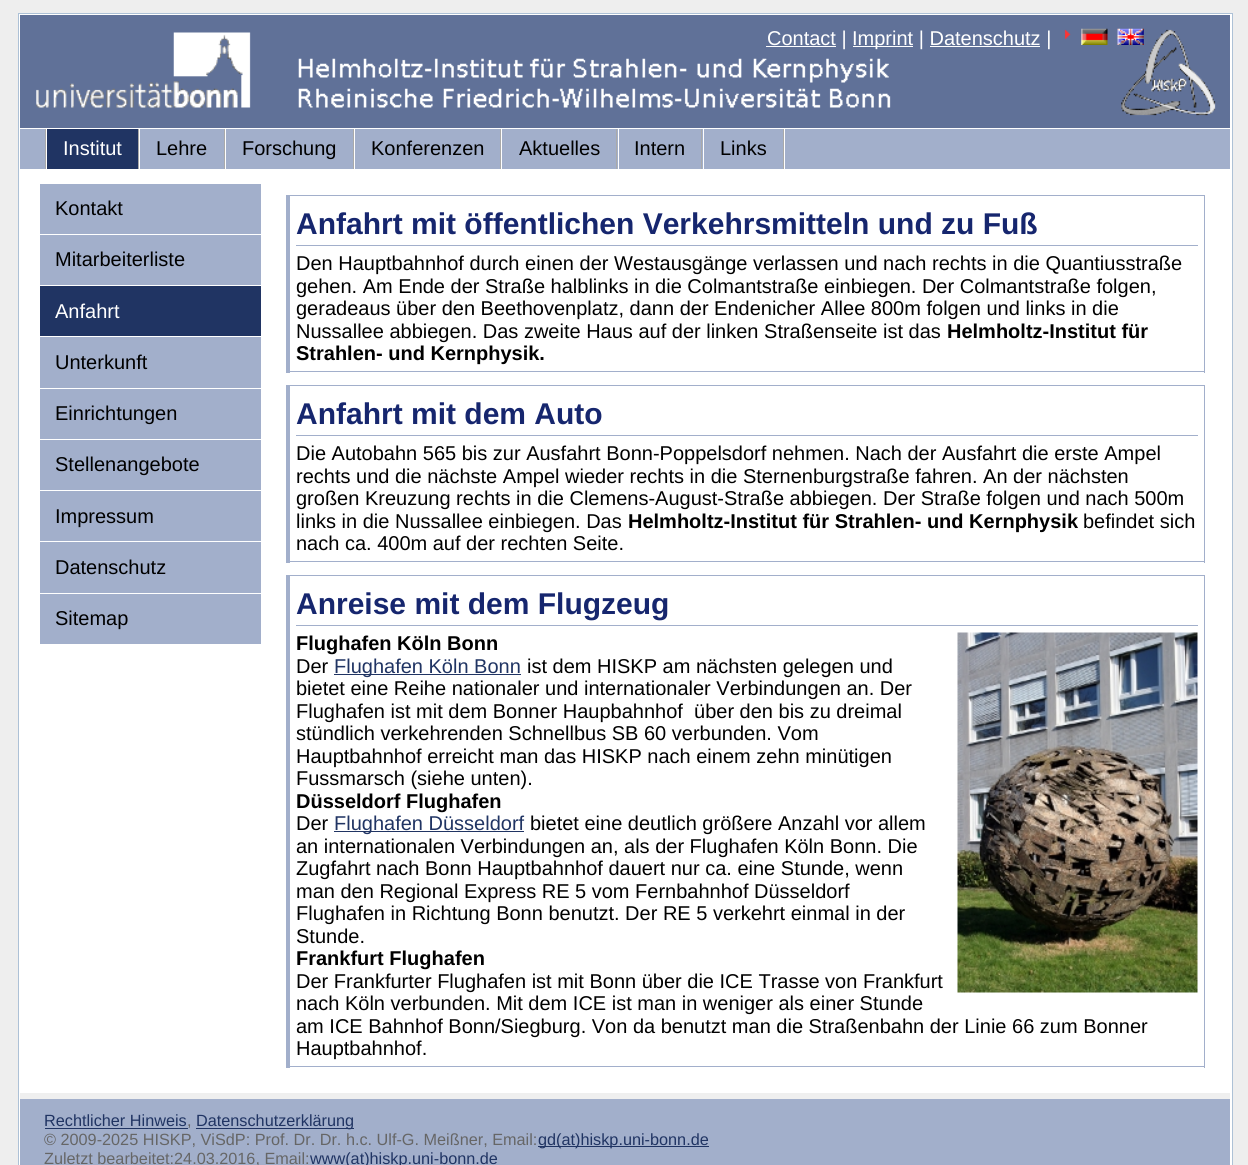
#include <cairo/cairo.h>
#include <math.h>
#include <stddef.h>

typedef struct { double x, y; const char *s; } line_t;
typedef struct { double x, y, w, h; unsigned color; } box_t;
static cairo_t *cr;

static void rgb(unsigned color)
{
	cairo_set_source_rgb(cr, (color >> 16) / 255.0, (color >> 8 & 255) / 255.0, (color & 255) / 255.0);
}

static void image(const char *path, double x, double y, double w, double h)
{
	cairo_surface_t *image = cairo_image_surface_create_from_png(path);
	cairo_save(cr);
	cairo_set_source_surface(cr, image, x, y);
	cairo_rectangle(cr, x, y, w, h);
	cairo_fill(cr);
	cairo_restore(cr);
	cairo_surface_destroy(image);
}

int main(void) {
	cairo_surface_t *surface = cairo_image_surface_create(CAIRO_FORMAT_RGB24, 1248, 1165);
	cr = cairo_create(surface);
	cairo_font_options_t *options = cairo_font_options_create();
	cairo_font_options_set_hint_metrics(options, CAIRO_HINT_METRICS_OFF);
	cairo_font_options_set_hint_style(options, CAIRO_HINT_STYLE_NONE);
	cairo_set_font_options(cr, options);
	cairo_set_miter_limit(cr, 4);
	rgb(0xeeeeee);
	cairo_paint(cr);
	rgb(0xffffff);
	cairo_rectangle(cr, 18.5, 13.5, 1214, 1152);
	cairo_fill_preserve(cr);
	rgb(0xadc1d6);
	cairo_set_line_width(cr, 1);
	cairo_stroke(cr);
	rgb(0x607198);
	cairo_rectangle(cr, 20, 15, 1210, 113);
	cairo_fill(cr);
	image("img/1.png", 298, 29, 918, 87);
	image("img/2.png", 36, 32, 215, 76);
	rgb(0xffffff);
	cairo_rectangle(cr, 766, 46, 70, 1);
	cairo_fill(cr);
	cairo_rectangle(cr, 853, 46, 60, 1);
	cairo_fill(cr);
	image("img/3.png", 1064, 29, 7, 10);
	image("img/4.png", 1081, 28, 27, 17);
	image("img/5.png", 1117, 28, 27, 17);
	{
		static const box_t items[] = {
			{930, 46, 110, 1, 0xffffff},
			{20, 129, 1210, 40, 0xa2afcb},
			{784, 129, 1, 40, 0xffffff},
			{45, 129, 1, 40, 0xaaaaaa},
			{47, 129, 91, 40, 0x203463},
			{138, 129, 1, 40, 0xaaaaaa},
			{46, 129, 1, 40, 0xffffff},
			{224, 129, 1, 40, 0xaaaaaa},
			{139, 129, 1, 40, 0xffffff},
			{353, 129, 1, 40, 0xaaaaaa},
			{225, 129, 1, 40, 0xffffff},
			{500, 129, 1, 40, 0xaaaaaa},
			{354, 129, 1, 40, 0xffffff},
			{616, 129, 1, 40, 0xaaaaaa},
			{501, 129, 1, 40, 0xffffff},
			{701, 129, 1, 40, 0xaaaaaa},
			{618, 129, 1, 40, 0xffffff},
			{783, 129, 1, 40, 0xaaaaaa},
			{703, 129, 1, 40, 0xffffff},
			{40, 184, 221, 50, 0xa2afcb},
			{40, 235, 221, 50, 0xa2afcb},
			{40, 286, 221, 50, 0x203463},
			{40, 337, 221, 51, 0xa2afcb},
			{40, 389, 221, 50, 0xa2afcb},
			{40, 440, 221, 50, 0xa2afcb},
			{40, 491, 221, 50, 0xa2afcb},
			{40, 542, 221, 51, 0xa2afcb},
			{40, 594, 221, 50, 0xa2afcb},
			{286, 195, 919, 1, 0xa2afcb},
			{1204, 195, 1, 178, 0xa2afcb},
			{286, 371, 919, 1, 0xa2afcb},
			{286, 195, 4, 178, 0xa2afcb},
			{296, 245, 902, 1, 0xa2afcb},
			{286, 385, 919, 1, 0xa2afcb},
			{1204, 385, 1, 178, 0xa2afcb},
			{286, 561, 919, 1, 0xa2afcb},
			{286, 385, 4, 178, 0xa2afcb},
			{296, 435, 902, 1, 0xa2afcb},
			{286, 575, 919, 1, 0xa2afcb},
			{1204, 575, 1, 493, 0xa2afcb},
			{286, 1066, 919, 1, 0xa2afcb},
			{286, 575, 4, 493, 0xa2afcb},
			{296, 625, 902, 1, 0xa2afcb},
		};
		for (size_t i = 0; i < sizeof items / sizeof *items; i++) {
			rgb(items[i].color);
			cairo_rectangle(cr, items[i].x, items[i].y, items[i].w, items[i].h);
			cairo_fill(cr);
		}
	}
	image("img/6.png", 957, 632, 241, 361);
	{
		static const box_t items[] = {
			{334, 674, 187, 1, 0x203463},
			{334, 831, 190, 1, 0x203463},
			{20, 1099, 1210, 66, 0xa2afcb},
			{20, 1093, 1210, 6, 0xefefef},
			{45, 1128, 143, 1, 0x203463},
			{196, 1128, 158, 1, 0x203463},
			{538, 1146, 171, 1, 0x203463},
		};
		for (size_t i = 0; i < sizeof items / sizeof *items; i++) {
			rgb(items[i].color);
			cairo_rectangle(cr, items[i].x, items[i].y, items[i].w, items[i].h);
			cairo_fill(cr);
		}
	}
	cairo_select_font_face(cr, "Liberation Sans", CAIRO_FONT_SLANT_NORMAL, CAIRO_FONT_WEIGHT_NORMAL);
	cairo_set_font_size(cr, 20);
	rgb(0xffffff);
	{
		static const line_t items[] = {
			{767, 45, "Contact |"},
			{852, 45, "Imprint | Datenschutz |"},
			{63, 155, "Institut"},
		};
		for (size_t i = 0; i < sizeof items / sizeof *items; i++) {
			cairo_move_to(cr, items[i].x, items[i].y);
			cairo_show_text(cr, items[i].s);
		}
	}
	rgb(0x000000);
	{
		static const line_t items[] = {
			{156, 155, "Lehre"},
			{242, 155, "Forschung"},
			{371, 155, "Konferenzen"},
			{519, 155, "Aktuelles"},
			{634, 155, "Intern"},
			{720, 155, "Links"},
			{55, 215, "Kontakt"},
			{55, 266, "Mitarbeiterliste"},
		};
		for (size_t i = 0; i < sizeof items / sizeof *items; i++) {
			cairo_move_to(cr, items[i].x, items[i].y);
			cairo_show_text(cr, items[i].s);
		}
	}
	rgb(0xffffff);
	cairo_move_to(cr, 55, 318);
	cairo_show_text(cr, "Anfahrt");
	rgb(0x000000);
	{
		static const line_t items[] = {
			{55, 369, "Unterkunft"},
			{55, 420, "Einrichtungen"},
			{55, 471, "Stellenangebote"},
			{55, 523, "Impressum"},
			{55, 574, "Datenschutz"},
			{55, 625, "Sitemap"},
		};
		for (size_t i = 0; i < sizeof items / sizeof *items; i++) {
			cairo_move_to(cr, items[i].x, items[i].y);
			cairo_show_text(cr, items[i].s);
		}
	}
	cairo_select_font_face(cr, "Liberation Sans", CAIRO_FONT_SLANT_NORMAL, CAIRO_FONT_WEIGHT_BOLD);
	cairo_set_font_size(cr, 30);
	rgb(0x16266e);
	cairo_move_to(cr, 296, 234);
	cairo_show_text(cr, "Anfahrt mit öffentlichen Verkehrsmitteln und zu Fuß");
	cairo_select_font_face(cr, "Liberation Sans", CAIRO_FONT_SLANT_NORMAL, CAIRO_FONT_WEIGHT_NORMAL);
	cairo_set_font_size(cr, 20);
	rgb(0x000000);
	{
		static const line_t items[] = {
			{296, 270, "Den Hauptbahnhof durch einen der Westausgänge verlassen und nach rechts in die Quantiusstraße"},
			{296, 293, "gehen. Am Ende der Straße halblinks in die Colmantstraße einbiegen. Der Colmantstraße folgen,"},
			{296, 315, "geradeaus über den Beethovenplatz, dann der Endenicher Allee 800m folgen und links in die"},
			{296, 338, "Nussallee abbiegen. Das zweite Haus auf der linken Straßenseite ist das"},
		};
		for (size_t i = 0; i < sizeof items / sizeof *items; i++) {
			cairo_move_to(cr, items[i].x, items[i].y);
			cairo_show_text(cr, items[i].s);
		}
	}
	cairo_select_font_face(cr, "Liberation Sans", CAIRO_FONT_SLANT_NORMAL, CAIRO_FONT_WEIGHT_BOLD);
	cairo_move_to(cr, 947, 338);
	cairo_show_text(cr, "Helmholtz-Institut für");
	cairo_move_to(cr, 296, 360);
	cairo_show_text(cr, "Strahlen- und Kernphysik.");
	cairo_set_font_size(cr, 30);
	rgb(0x16266e);
	cairo_move_to(cr, 296, 424);
	cairo_show_text(cr, "Anfahrt mit dem Auto");
	cairo_select_font_face(cr, "Liberation Sans", CAIRO_FONT_SLANT_NORMAL, CAIRO_FONT_WEIGHT_NORMAL);
	cairo_set_font_size(cr, 20);
	rgb(0x000000);
	{
		static const line_t items[] = {
			{296, 460, "Die Autobahn 565 bis zur Ausfahrt Bonn-Poppelsdorf nehmen. Nach der Ausfahrt die erste Ampel"},
			{296, 483, "rechts und die nächste Ampel wieder rechts in die Sternenburgstraße fahren. An der nächsten"},
			{296, 505, "großen Kreuzung rechts in die Clemens-August-Straße abbiegen. Der Straße folgen und nach 500m"},
			{296, 528, "links in die Nussallee einbiegen. Das"},
		};
		for (size_t i = 0; i < sizeof items / sizeof *items; i++) {
			cairo_move_to(cr, items[i].x, items[i].y);
			cairo_show_text(cr, items[i].s);
		}
	}
	cairo_select_font_face(cr, "Liberation Sans", CAIRO_FONT_SLANT_NORMAL, CAIRO_FONT_WEIGHT_BOLD);
	cairo_move_to(cr, 628, 528);
	cairo_show_text(cr, "Helmholtz-Institut für Strahlen- und Kernphysik");
	cairo_select_font_face(cr, "Liberation Sans", CAIRO_FONT_SLANT_NORMAL, CAIRO_FONT_WEIGHT_NORMAL);
	cairo_move_to(cr, 1083, 528);
	cairo_show_text(cr, "befindet sich");
	cairo_move_to(cr, 296, 550);
	cairo_show_text(cr, "nach ca. 400m auf der rechten Seite.");
	cairo_select_font_face(cr, "Liberation Sans", CAIRO_FONT_SLANT_NORMAL, CAIRO_FONT_WEIGHT_BOLD);
	cairo_set_font_size(cr, 30);
	rgb(0x16266e);
	cairo_move_to(cr, 296, 614);
	cairo_show_text(cr, "Anreise mit dem Flugzeug");
	cairo_set_font_size(cr, 20);
	rgb(0x000000);
	cairo_move_to(cr, 296, 650);
	cairo_show_text(cr, "Flughafen Köln Bonn");
	cairo_select_font_face(cr, "Liberation Sans", CAIRO_FONT_SLANT_NORMAL, CAIRO_FONT_WEIGHT_NORMAL);
	cairo_move_to(cr, 296, 673);
	cairo_show_text(cr, "Der");
	rgb(0x203463);
	cairo_move_to(cr, 334, 673);
	cairo_show_text(cr, "Flughafen Köln Bonn");
	rgb(0x000000);
	{
		static const line_t items[] = {
			{527, 673, "ist dem HISKP am nächsten gelegen und"},
			{296, 695, "bietet eine Reihe nationaler und internationaler Verbindungen an. Der"},
			{296, 718, "Flughafen ist mit dem Bonner Haupbahnhof  über den bis zu dreimal"},
			{296, 740, "stündlich verkehrenden Schnellbus SB 60 verbunden. Vom"},
			{296, 763, "Hauptbahnhof erreicht man das HISKP nach einem zehn minütigen"},
			{296, 785, "Fussmarsch (siehe unten)."},
		};
		for (size_t i = 0; i < sizeof items / sizeof *items; i++) {
			cairo_move_to(cr, items[i].x, items[i].y);
			cairo_show_text(cr, items[i].s);
		}
	}
	cairo_select_font_face(cr, "Liberation Sans", CAIRO_FONT_SLANT_NORMAL, CAIRO_FONT_WEIGHT_BOLD);
	cairo_move_to(cr, 296, 808);
	cairo_show_text(cr, "Düsseldorf Flughafen");
	cairo_select_font_face(cr, "Liberation Sans", CAIRO_FONT_SLANT_NORMAL, CAIRO_FONT_WEIGHT_NORMAL);
	cairo_move_to(cr, 296, 830);
	cairo_show_text(cr, "Der");
	rgb(0x203463);
	cairo_move_to(cr, 334, 830);
	cairo_show_text(cr, "Flughafen Düsseldorf");
	rgb(0x000000);
	{
		static const line_t items[] = {
			{530, 830, "bietet eine deutlich größere Anzahl vor allem"},
			{296, 853, "an internationalen Verbindungen an, als der Flughafen Köln Bonn. Die"},
			{296, 875, "Zugfahrt nach Bonn Hauptbahnhof dauert nur ca. eine Stunde, wenn"},
			{296, 898, "man den Regional Express RE 5 vom Fernbahnhof Düsseldorf"},
			{296, 920, "Flughafen in Richtung Bonn benutzt. Der RE 5 verkehrt einmal in der"},
			{296, 943, "Stunde."},
		};
		for (size_t i = 0; i < sizeof items / sizeof *items; i++) {
			cairo_move_to(cr, items[i].x, items[i].y);
			cairo_show_text(cr, items[i].s);
		}
	}
	cairo_select_font_face(cr, "Liberation Sans", CAIRO_FONT_SLANT_NORMAL, CAIRO_FONT_WEIGHT_BOLD);
	cairo_move_to(cr, 296, 965);
	cairo_show_text(cr, "Frankfurt Flughafen");
	cairo_select_font_face(cr, "Liberation Sans", CAIRO_FONT_SLANT_NORMAL, CAIRO_FONT_WEIGHT_NORMAL);
	{
		static const line_t items[] = {
			{296, 988, "Der Frankfurter Flughafen ist mit Bonn über die ICE Trasse von Frankfurt"},
			{296, 1010, "nach Köln verbunden. Mit dem ICE ist man in weniger als einer Stunde"},
			{296, 1033, "am ICE Bahnhof Bonn/Siegburg. Von da benutzt man die Straßenbahn der Linie 66 zum Bonner"},
			{296, 1055, "Hauptbahnhof."},
		};
		for (size_t i = 0; i < sizeof items / sizeof *items; i++) {
			cairo_move_to(cr, items[i].x, items[i].y);
			cairo_show_text(cr, items[i].s);
		}
	}
	cairo_set_font_size(cr, 16.25);
	rgb(0x203463);
	cairo_move_to(cr, 44, 1126);
	cairo_show_text(cr, "Rechtlicher Hinweis");
	rgb(0x666666);
	cairo_move_to(cr, 187, 1126);
	cairo_show_text(cr, ",");
	rgb(0x203463);
	cairo_move_to(cr, 196, 1126);
	cairo_show_text(cr, "Datenschutzerklärung");
	rgb(0x666666);
	cairo_move_to(cr, 44, 1145);
	cairo_show_text(cr, "© 2009-2025 HISKP, ViSdP: Prof. Dr. Dr. h.c. Ulf-G. Meißner, Email:");
	rgb(0x203463);
	cairo_move_to(cr, 538, 1145);
	cairo_show_text(cr, "gd(at)hiskp.uni-bonn.de");
	rgb(0x666666);
	cairo_move_to(cr, 44, 1164);
	cairo_show_text(cr, "Zuletzt bearbeitet:24.03.2016, Email:");
	rgb(0x203463);
	cairo_move_to(cr, 310, 1164);
	cairo_show_text(cr, "www(at)hiskp.uni-bonn.de");
	cairo_surface_write_to_png(surface, "page.png");
	cairo_font_options_destroy(options);
	cairo_destroy(cr);
	cairo_surface_destroy(surface);
	return 0;
}
